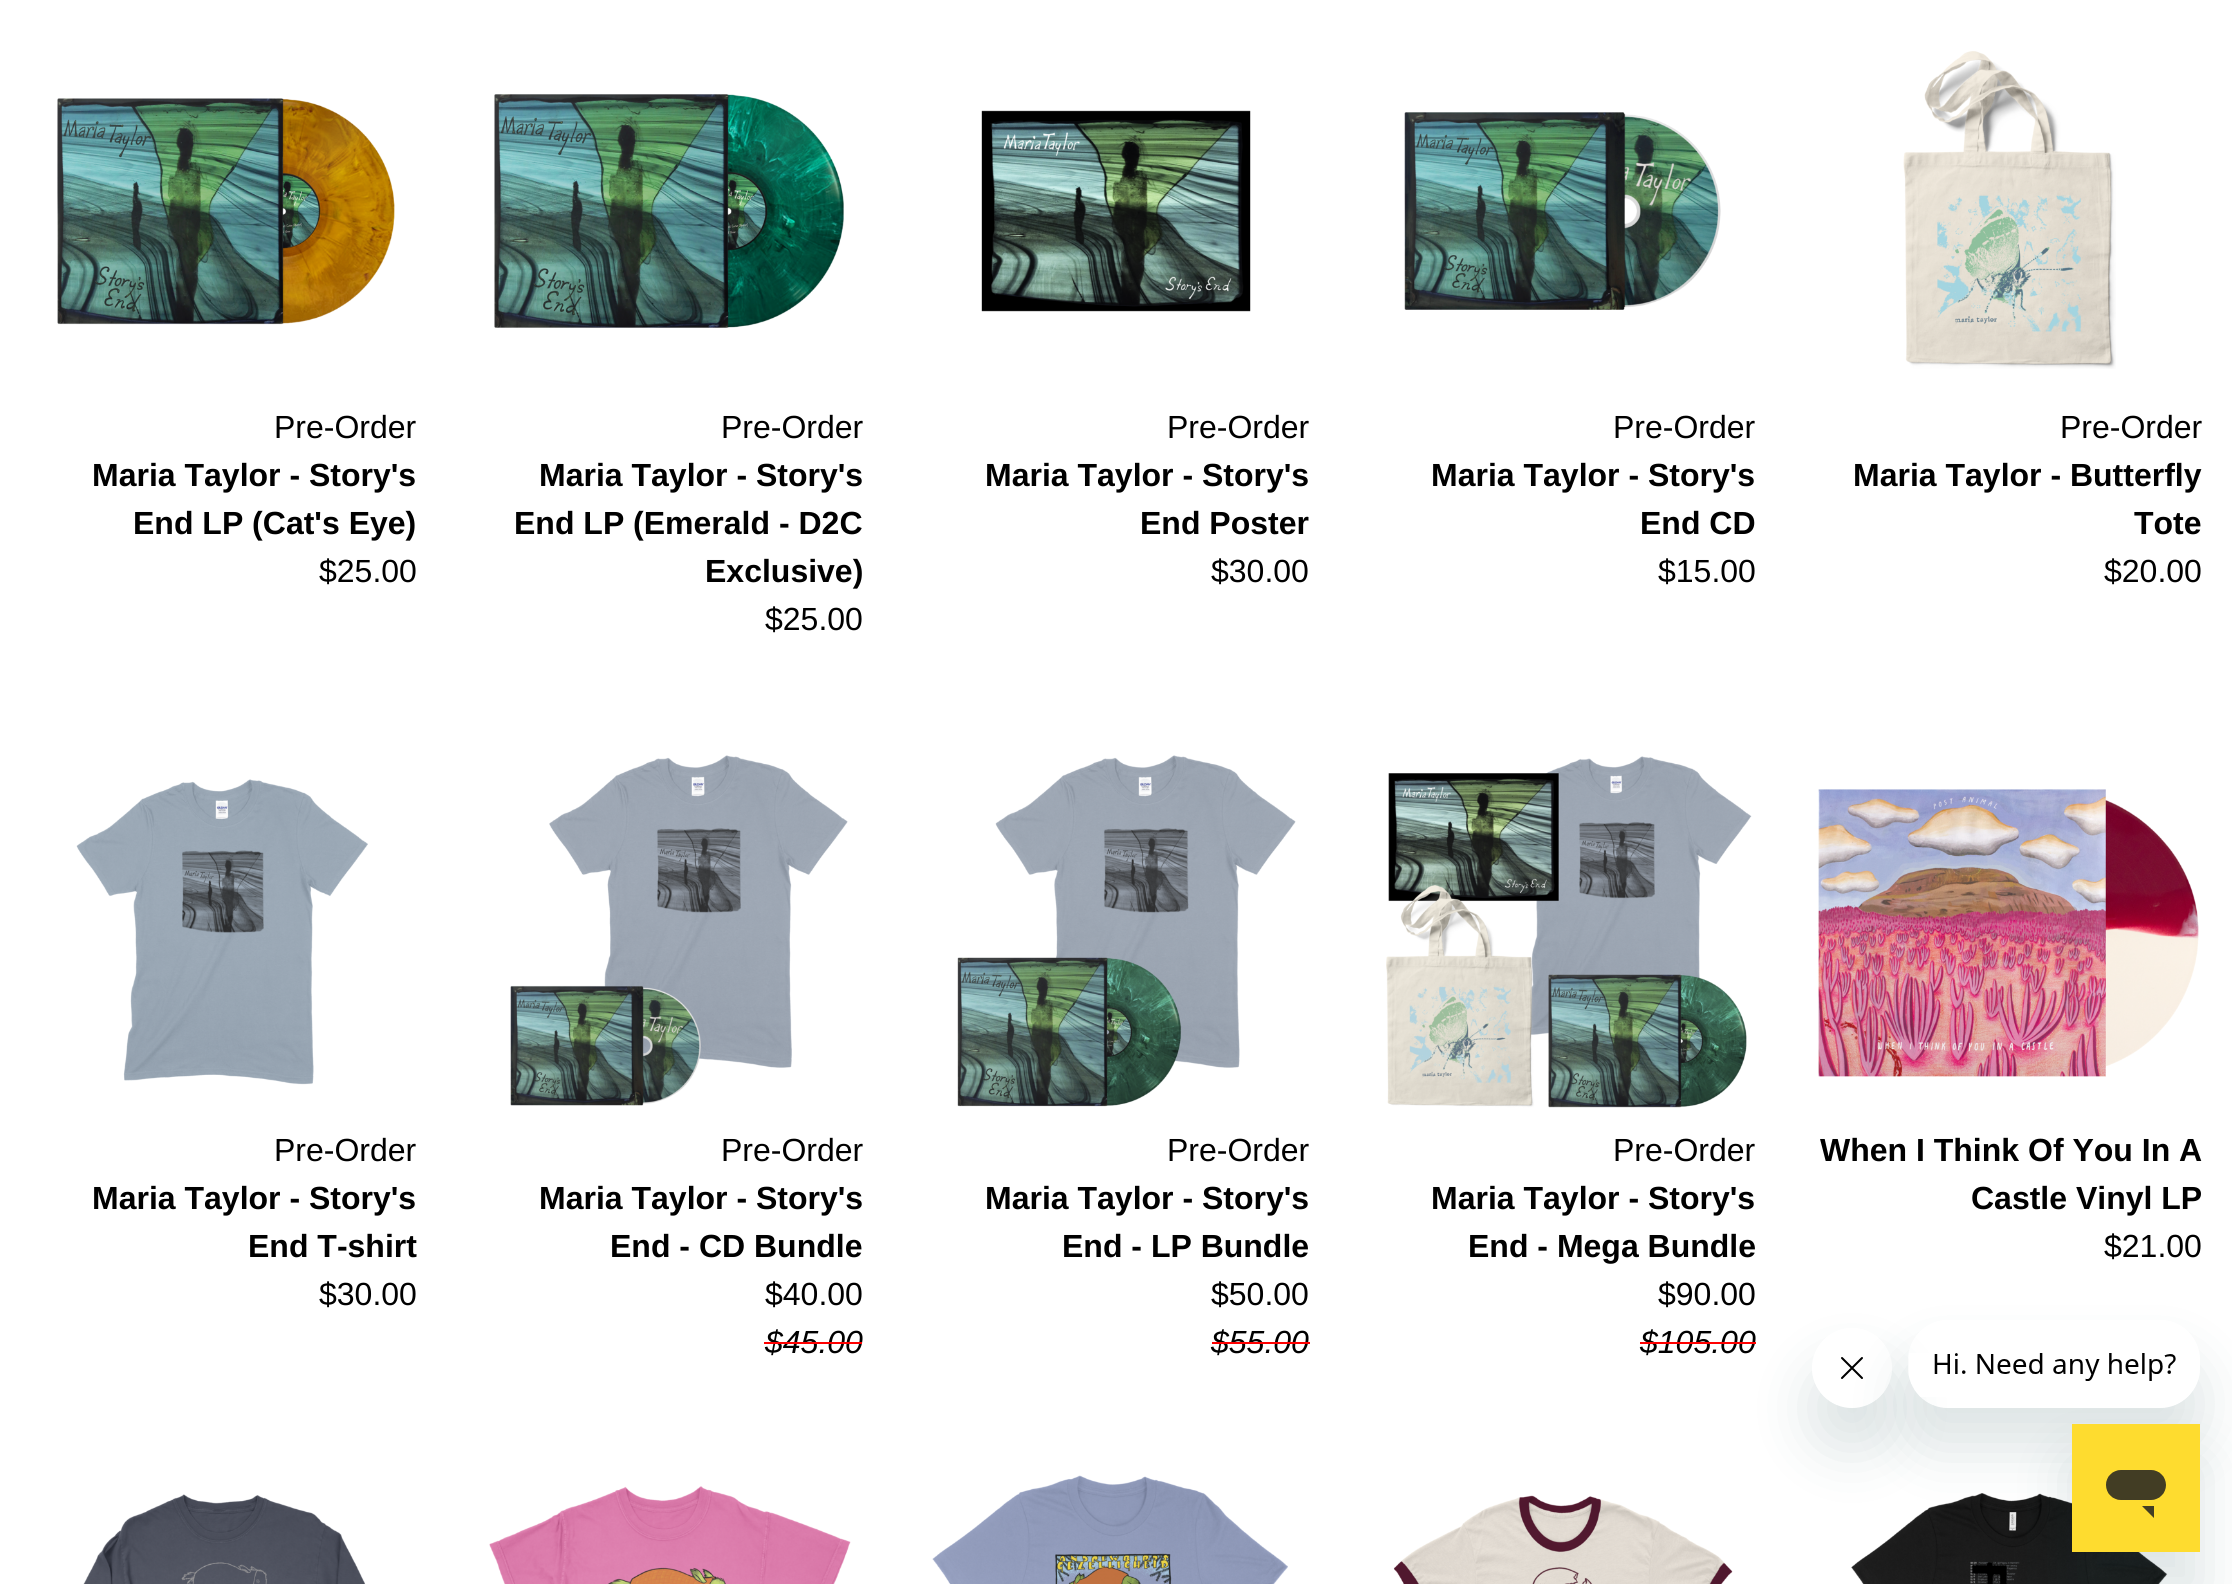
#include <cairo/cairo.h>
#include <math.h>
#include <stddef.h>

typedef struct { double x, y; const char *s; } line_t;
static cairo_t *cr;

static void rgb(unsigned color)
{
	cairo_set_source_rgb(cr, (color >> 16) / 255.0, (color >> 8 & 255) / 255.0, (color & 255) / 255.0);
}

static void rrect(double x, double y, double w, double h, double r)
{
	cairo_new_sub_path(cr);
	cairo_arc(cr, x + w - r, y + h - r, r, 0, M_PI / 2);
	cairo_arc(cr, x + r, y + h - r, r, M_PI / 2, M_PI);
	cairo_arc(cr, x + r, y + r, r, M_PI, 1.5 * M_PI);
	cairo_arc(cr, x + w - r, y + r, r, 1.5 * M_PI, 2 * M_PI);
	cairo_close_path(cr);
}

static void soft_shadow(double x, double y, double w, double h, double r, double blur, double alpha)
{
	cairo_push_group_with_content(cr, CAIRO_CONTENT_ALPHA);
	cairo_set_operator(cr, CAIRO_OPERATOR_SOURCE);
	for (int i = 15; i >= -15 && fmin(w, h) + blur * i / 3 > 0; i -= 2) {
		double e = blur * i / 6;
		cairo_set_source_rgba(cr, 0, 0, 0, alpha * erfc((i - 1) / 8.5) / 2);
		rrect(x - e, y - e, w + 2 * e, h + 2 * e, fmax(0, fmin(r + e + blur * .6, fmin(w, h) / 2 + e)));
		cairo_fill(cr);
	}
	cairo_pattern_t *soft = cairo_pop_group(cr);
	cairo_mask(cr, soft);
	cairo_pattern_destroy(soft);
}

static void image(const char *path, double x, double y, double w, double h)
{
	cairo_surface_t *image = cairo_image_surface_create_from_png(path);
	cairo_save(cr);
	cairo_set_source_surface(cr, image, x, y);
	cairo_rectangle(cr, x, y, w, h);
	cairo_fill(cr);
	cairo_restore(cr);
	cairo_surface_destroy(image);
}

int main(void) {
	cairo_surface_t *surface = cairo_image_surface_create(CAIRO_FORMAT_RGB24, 2232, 1584);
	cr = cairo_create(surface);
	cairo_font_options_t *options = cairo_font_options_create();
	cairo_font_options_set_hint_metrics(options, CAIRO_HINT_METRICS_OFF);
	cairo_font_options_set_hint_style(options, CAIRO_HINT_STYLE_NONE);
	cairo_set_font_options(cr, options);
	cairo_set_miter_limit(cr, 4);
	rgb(0xffffff);
	cairo_paint(cr);
	image("img/1.png", 57, 98, 338, 227);
	image("img/2.png", 494, 94, 350, 234);
	image("img/3.png", 981, 110, 270, 202);
	image("img/4.png", 1404, 112, 317, 198);
	image("img/5.png", 1903, 51, 213, 318);
	image("img/6.png", 76, 779, 292, 306);
	image("img/7.png", 510, 755, 338, 351);
	image("img/8.png", 957, 755, 339, 352);
	image("img/9.png", 1386, 756, 366, 352);
	image("img/10.png", 1818, 789, 381, 288);
	image("img/11.png", 83, 1494, 283, 90);
	image("img/12.png", 489, 1486, 362, 98);
	image("img/13.png", 932, 1475, 356, 109);
	image("img/14.png", 1393, 1495, 340, 89);
	image("img/15.png", 1851, 1493, 317, 91);
	cairo_select_font_face(cr, "Liberation Sans", CAIRO_FONT_SLANT_NORMAL, CAIRO_FONT_WEIGHT_NORMAL);
	cairo_set_font_size(cr, 32);
	rgb(0x000000);
	cairo_move_to(cr, 274, 438);
	cairo_show_text(cr, "Pre-Order");
	cairo_select_font_face(cr, "Liberation Sans", CAIRO_FONT_SLANT_NORMAL, CAIRO_FONT_WEIGHT_BOLD);
	cairo_move_to(cr, 92, 486);
	cairo_show_text(cr, "Maria Taylor - Story's");
	cairo_move_to(cr, 133, 534);
	cairo_show_text(cr, "End LP (Cat's Eye)");
	cairo_select_font_face(cr, "Liberation Sans", CAIRO_FONT_SLANT_NORMAL, CAIRO_FONT_WEIGHT_NORMAL);
	cairo_move_to(cr, 319, 582);
	cairo_show_text(cr, "$25.00");
	cairo_move_to(cr, 721, 438);
	cairo_show_text(cr, "Pre-Order");
	cairo_select_font_face(cr, "Liberation Sans", CAIRO_FONT_SLANT_NORMAL, CAIRO_FONT_WEIGHT_BOLD);
	{
		static const line_t items[] = {
			{539, 486, "Maria Taylor - Story's"},
			{514, 534, "End LP (Emerald - D2C"},
			{705, 582, "Exclusive)"},
		};
		for (size_t i = 0; i < sizeof items / sizeof *items; i++) {
			cairo_move_to(cr, items[i].x, items[i].y);
			cairo_show_text(cr, items[i].s);
		}
	}
	cairo_select_font_face(cr, "Liberation Sans", CAIRO_FONT_SLANT_NORMAL, CAIRO_FONT_WEIGHT_NORMAL);
	cairo_move_to(cr, 765, 630);
	cairo_show_text(cr, "$25.00");
	cairo_move_to(cr, 1167, 438);
	cairo_show_text(cr, "Pre-Order");
	cairo_select_font_face(cr, "Liberation Sans", CAIRO_FONT_SLANT_NORMAL, CAIRO_FONT_WEIGHT_BOLD);
	cairo_move_to(cr, 985, 486);
	cairo_show_text(cr, "Maria Taylor - Story's");
	cairo_move_to(cr, 1140, 534);
	cairo_show_text(cr, "End Poster");
	cairo_select_font_face(cr, "Liberation Sans", CAIRO_FONT_SLANT_NORMAL, CAIRO_FONT_WEIGHT_NORMAL);
	cairo_move_to(cr, 1211, 582);
	cairo_show_text(cr, "$30.00");
	cairo_move_to(cr, 1613, 438);
	cairo_show_text(cr, "Pre-Order");
	cairo_select_font_face(cr, "Liberation Sans", CAIRO_FONT_SLANT_NORMAL, CAIRO_FONT_WEIGHT_BOLD);
	cairo_move_to(cr, 1431, 486);
	cairo_show_text(cr, "Maria Taylor - Story's");
	cairo_move_to(cr, 1640, 534);
	cairo_show_text(cr, "End CD");
	cairo_select_font_face(cr, "Liberation Sans", CAIRO_FONT_SLANT_NORMAL, CAIRO_FONT_WEIGHT_NORMAL);
	cairo_move_to(cr, 1658, 582);
	cairo_show_text(cr, "$15.00");
	cairo_move_to(cr, 2060, 438);
	cairo_show_text(cr, "Pre-Order");
	cairo_select_font_face(cr, "Liberation Sans", CAIRO_FONT_SLANT_NORMAL, CAIRO_FONT_WEIGHT_BOLD);
	cairo_move_to(cr, 1853, 486);
	cairo_show_text(cr, "Maria Taylor - Butterfly");
	cairo_move_to(cr, 2134, 534);
	cairo_show_text(cr, "Tote");
	cairo_select_font_face(cr, "Liberation Sans", CAIRO_FONT_SLANT_NORMAL, CAIRO_FONT_WEIGHT_NORMAL);
	cairo_move_to(cr, 2104, 582);
	cairo_show_text(cr, "$20.00");
	cairo_move_to(cr, 274, 1161);
	cairo_show_text(cr, "Pre-Order");
	cairo_select_font_face(cr, "Liberation Sans", CAIRO_FONT_SLANT_NORMAL, CAIRO_FONT_WEIGHT_BOLD);
	cairo_move_to(cr, 92, 1209);
	cairo_show_text(cr, "Maria Taylor - Story's");
	cairo_move_to(cr, 248, 1257);
	cairo_show_text(cr, "End T-shirt");
	cairo_select_font_face(cr, "Liberation Sans", CAIRO_FONT_SLANT_NORMAL, CAIRO_FONT_WEIGHT_NORMAL);
	cairo_move_to(cr, 319, 1305);
	cairo_show_text(cr, "$30.00");
	cairo_move_to(cr, 721, 1161);
	cairo_show_text(cr, "Pre-Order");
	cairo_select_font_face(cr, "Liberation Sans", CAIRO_FONT_SLANT_NORMAL, CAIRO_FONT_WEIGHT_BOLD);
	cairo_move_to(cr, 539, 1209);
	cairo_show_text(cr, "Maria Taylor - Story's");
	cairo_move_to(cr, 610, 1257);
	cairo_show_text(cr, "End - CD Bundle");
	cairo_select_font_face(cr, "Liberation Sans", CAIRO_FONT_SLANT_NORMAL, CAIRO_FONT_WEIGHT_NORMAL);
	cairo_move_to(cr, 765, 1305);
	cairo_show_text(cr, "$40.00");
	cairo_select_font_face(cr, "Liberation Sans", CAIRO_FONT_SLANT_ITALIC, CAIRO_FONT_WEIGHT_NORMAL);
	cairo_move_to(cr, 765, 1353);
	cairo_show_text(cr, "$45.00");
	rgb(0xff0000);
	cairo_rectangle(cr, 764, 1342, 98, 2);
	cairo_fill(cr);
	cairo_select_font_face(cr, "Liberation Sans", CAIRO_FONT_SLANT_NORMAL, CAIRO_FONT_WEIGHT_NORMAL);
	rgb(0x000000);
	cairo_move_to(cr, 1167, 1161);
	cairo_show_text(cr, "Pre-Order");
	cairo_select_font_face(cr, "Liberation Sans", CAIRO_FONT_SLANT_NORMAL, CAIRO_FONT_WEIGHT_BOLD);
	cairo_move_to(cr, 985, 1209);
	cairo_show_text(cr, "Maria Taylor - Story's");
	cairo_move_to(cr, 1062, 1257);
	cairo_show_text(cr, "End - LP Bundle");
	cairo_select_font_face(cr, "Liberation Sans", CAIRO_FONT_SLANT_NORMAL, CAIRO_FONT_WEIGHT_NORMAL);
	cairo_move_to(cr, 1211, 1305);
	cairo_show_text(cr, "$50.00");
	cairo_select_font_face(cr, "Liberation Sans", CAIRO_FONT_SLANT_ITALIC, CAIRO_FONT_WEIGHT_NORMAL);
	cairo_move_to(cr, 1211, 1353);
	cairo_show_text(cr, "$55.00");
	rgb(0xff0000);
	cairo_rectangle(cr, 1212, 1342, 98, 2);
	cairo_fill(cr);
	cairo_select_font_face(cr, "Liberation Sans", CAIRO_FONT_SLANT_NORMAL, CAIRO_FONT_WEIGHT_NORMAL);
	rgb(0x000000);
	cairo_move_to(cr, 1613, 1161);
	cairo_show_text(cr, "Pre-Order");
	cairo_select_font_face(cr, "Liberation Sans", CAIRO_FONT_SLANT_NORMAL, CAIRO_FONT_WEIGHT_BOLD);
	cairo_move_to(cr, 1431, 1209);
	cairo_show_text(cr, "Maria Taylor - Story's");
	cairo_move_to(cr, 1468, 1257);
	cairo_show_text(cr, "End - Mega Bundle");
	cairo_select_font_face(cr, "Liberation Sans", CAIRO_FONT_SLANT_NORMAL, CAIRO_FONT_WEIGHT_NORMAL);
	cairo_move_to(cr, 1658, 1305);
	cairo_show_text(cr, "$90.00");
	cairo_select_font_face(cr, "Liberation Sans", CAIRO_FONT_SLANT_ITALIC, CAIRO_FONT_WEIGHT_NORMAL);
	cairo_move_to(cr, 1640, 1353);
	cairo_show_text(cr, "$105.00");
	rgb(0xff0000);
	cairo_rectangle(cr, 1640, 1342, 116, 2);
	cairo_fill(cr);
	cairo_select_font_face(cr, "Liberation Sans", CAIRO_FONT_SLANT_NORMAL, CAIRO_FONT_WEIGHT_BOLD);
	rgb(0x000000);
	cairo_move_to(cr, 1820, 1161);
	cairo_show_text(cr, "When I Think Of You In A");
	cairo_move_to(cr, 1971, 1209);
	cairo_show_text(cr, "Castle Vinyl LP");
	cairo_select_font_face(cr, "Liberation Sans", CAIRO_FONT_SLANT_NORMAL, CAIRO_FONT_WEIGHT_NORMAL);
	cairo_move_to(cr, 2104, 1257);
	cairo_show_text(cr, "$21.00");
	cairo_save(cr);
	cairo_set_fill_rule(cr, CAIRO_FILL_RULE_EVEN_ODD);
	cairo_new_path(cr);
	cairo_move_to(cr, 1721, 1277);
	cairo_line_to(cr, 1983, 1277);
	cairo_line_to(cr, 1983, 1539);
	cairo_line_to(cr, 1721, 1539);
	cairo_close_path(cr);
	cairo_move_to(cr, 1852, 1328);
	cairo_curve_to(cr, 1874, 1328, 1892, 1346, 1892, 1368);
	cairo_curve_to(cr, 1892, 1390, 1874, 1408, 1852, 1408);
	cairo_curve_to(cr, 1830, 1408, 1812, 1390, 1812, 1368);
	cairo_curve_to(cr, 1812, 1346, 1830, 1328, 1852, 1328);
	cairo_close_path(cr);
	cairo_clip(cr);
	rgb(0x17494d);
	soft_shadow(1812, 1368, 80, 80, 40, 30, 0.15);
	cairo_restore(cr);
	image("img/17.png", 1841, 1357, 22, 22);
	cairo_save(cr);
	cairo_set_fill_rule(cr, CAIRO_FILL_RULE_EVEN_ODD);
	cairo_new_path(cr);
	cairo_move_to(cr, 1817, 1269);
	cairo_line_to(cr, 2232, 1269);
	cairo_line_to(cr, 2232, 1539);
	cairo_line_to(cr, 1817, 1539);
	cairo_close_path(cr);
	cairo_move_to(cr, 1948, 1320);
	cairo_line_to(cr, 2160, 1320);
	cairo_curve_to(cr, 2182, 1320, 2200, 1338, 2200, 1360);
	cairo_line_to(cr, 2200, 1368);
	cairo_curve_to(cr, 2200, 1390, 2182, 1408, 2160, 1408);
	cairo_line_to(cr, 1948, 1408);
	cairo_curve_to(cr, 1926, 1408, 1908, 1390, 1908, 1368);
	cairo_line_to(cr, 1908, 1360);
	cairo_curve_to(cr, 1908, 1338, 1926, 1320, 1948, 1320);
	cairo_close_path(cr);
	cairo_clip(cr);
	rgb(0x17494d);
	soft_shadow(1908, 1360, 292, 88, 40, 30, 0.15);
	cairo_restore(cr);
	image("img/16.png", 1909, 1353, 267, 44);
	rgb(0x17494d);
	soft_shadow(2072, 1464, 128, 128, 0, 30, 0.15);
	image("img/18.png", 2072, 1424, 128, 128);
	cairo_surface_write_to_png(surface, "page.png");
	cairo_font_options_destroy(options);
	cairo_destroy(cr);
	cairo_surface_destroy(surface);
	return 0;
}
